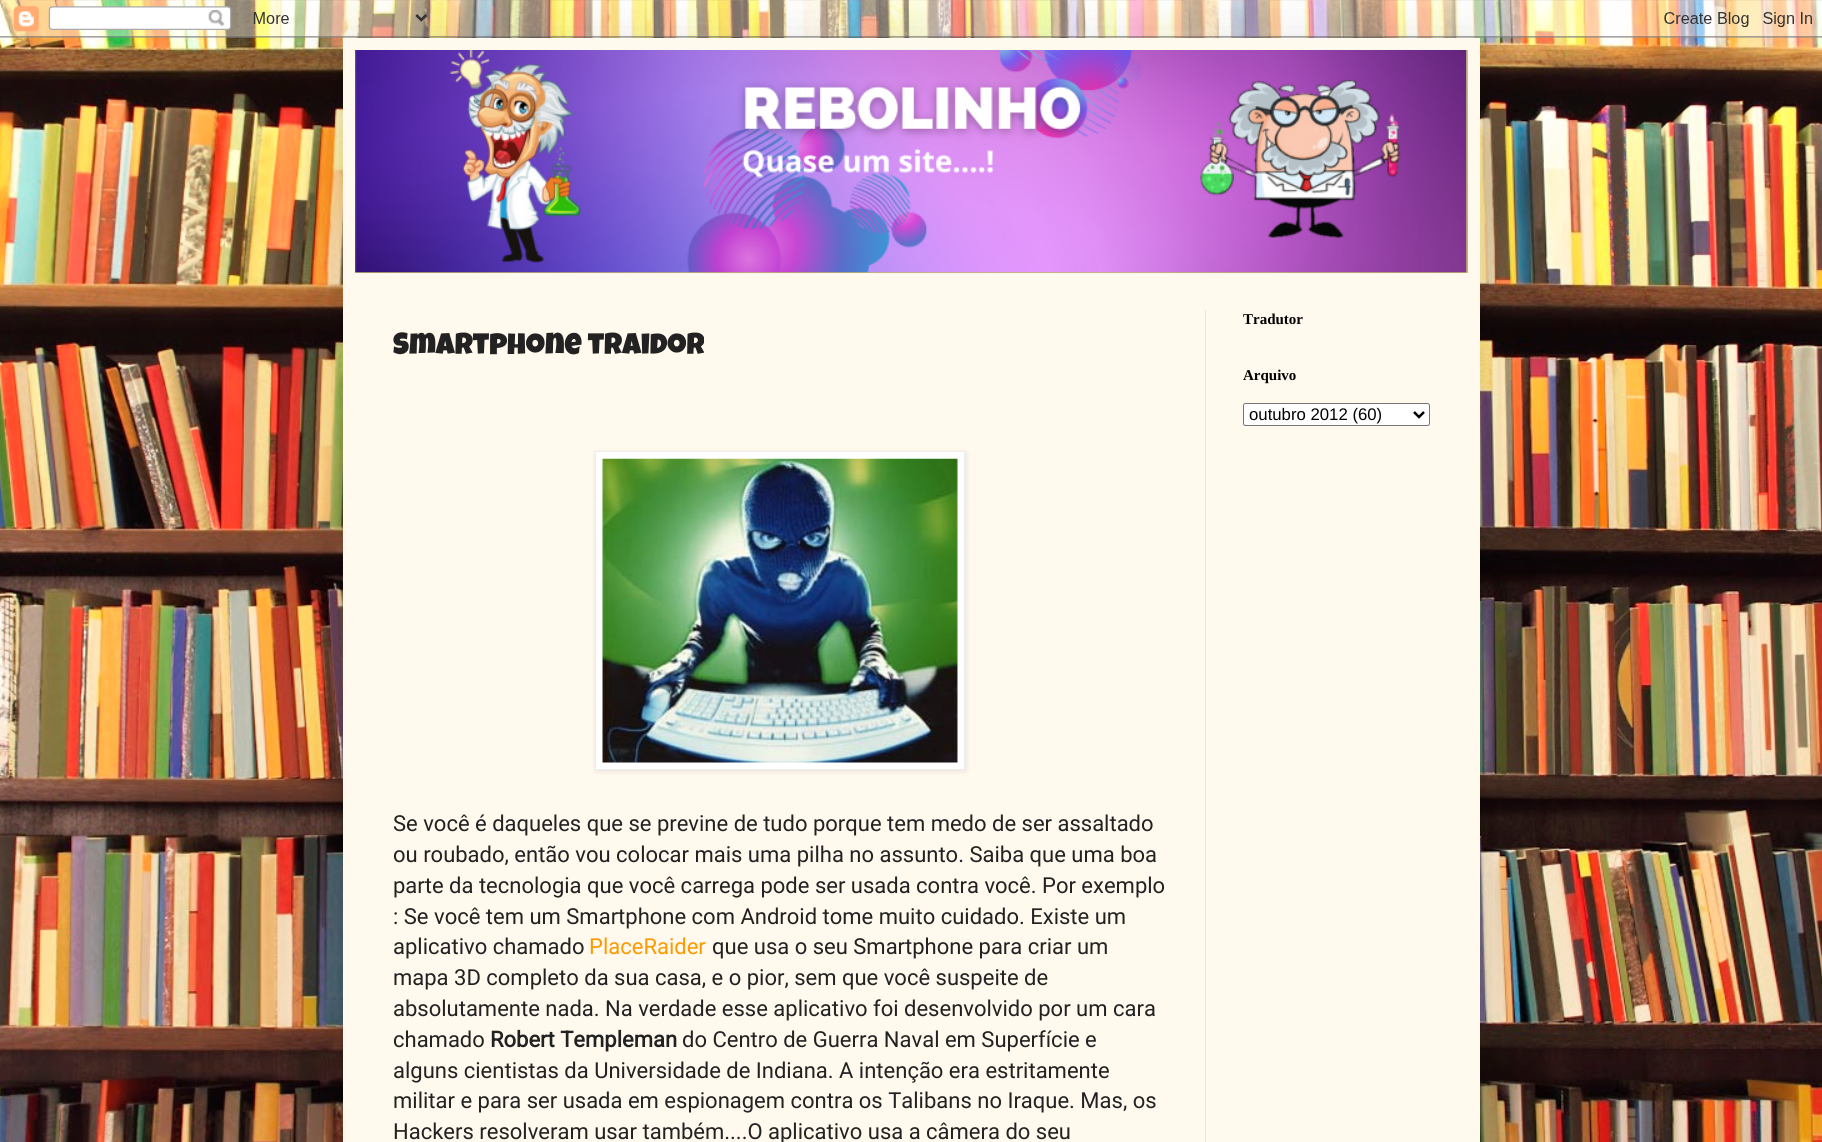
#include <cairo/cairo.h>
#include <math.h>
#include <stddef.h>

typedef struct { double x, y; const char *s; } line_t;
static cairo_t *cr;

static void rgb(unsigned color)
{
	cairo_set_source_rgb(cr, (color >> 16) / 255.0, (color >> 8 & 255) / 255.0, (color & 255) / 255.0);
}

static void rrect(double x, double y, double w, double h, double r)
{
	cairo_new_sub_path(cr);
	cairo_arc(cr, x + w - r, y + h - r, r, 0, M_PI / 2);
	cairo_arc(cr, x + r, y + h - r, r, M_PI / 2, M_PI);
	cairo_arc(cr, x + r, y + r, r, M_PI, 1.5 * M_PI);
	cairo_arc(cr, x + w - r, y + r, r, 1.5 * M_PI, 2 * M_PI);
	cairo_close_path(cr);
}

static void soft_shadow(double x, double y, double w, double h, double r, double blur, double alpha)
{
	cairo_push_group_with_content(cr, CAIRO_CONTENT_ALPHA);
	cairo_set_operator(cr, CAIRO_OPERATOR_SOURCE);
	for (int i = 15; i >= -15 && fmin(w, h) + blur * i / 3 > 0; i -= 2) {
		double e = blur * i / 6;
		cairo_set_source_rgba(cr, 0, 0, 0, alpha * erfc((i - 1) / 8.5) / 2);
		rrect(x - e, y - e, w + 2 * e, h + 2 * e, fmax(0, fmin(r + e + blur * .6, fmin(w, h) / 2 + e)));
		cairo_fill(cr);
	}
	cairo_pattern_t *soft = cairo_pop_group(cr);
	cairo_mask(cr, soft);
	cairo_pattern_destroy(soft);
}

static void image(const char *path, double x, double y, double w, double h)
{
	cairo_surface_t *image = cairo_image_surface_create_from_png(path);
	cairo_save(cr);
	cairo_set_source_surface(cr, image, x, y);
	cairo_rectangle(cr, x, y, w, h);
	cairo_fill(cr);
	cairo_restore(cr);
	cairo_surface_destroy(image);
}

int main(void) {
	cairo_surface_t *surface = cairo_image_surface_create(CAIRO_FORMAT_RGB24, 1822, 1142);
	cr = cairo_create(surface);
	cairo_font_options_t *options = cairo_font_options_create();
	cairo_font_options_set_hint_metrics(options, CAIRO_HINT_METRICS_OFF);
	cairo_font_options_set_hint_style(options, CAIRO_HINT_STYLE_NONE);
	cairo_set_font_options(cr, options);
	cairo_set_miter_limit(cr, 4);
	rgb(0xffffff);
	cairo_paint(cr);
	image("img/1.png", 0, 0, 1822, 1142);
	rgb(0x000000);
	soft_shadow(343, 38, 1137, 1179, 0, 25, 0.15);
	image("img/2.png", 0, 0, 1822, 38);
	rgb(0xfff9ee);
	cairo_rectangle(cr, 343, 38, 1137, 1104);
	cairo_fill(cr);
	rgb(0xccb666);
	cairo_rectangle(cr, 355, 50, 1113, 223);
	cairo_fill(cr);
	image("img/3.png", 1466, 50, 2, 163);
	image("img/4.png", 355, 50, 1112, 223);
	rgb(0xeee5dd);
	cairo_rectangle(cr, 1205, 310, 1, 832);
	cairo_fill(cr);
	rgb(0x000000);
	soft_shadow(596, 453, 370, 318, 0, 3, 0.1);
	rgb(0xffffff);
	cairo_rectangle(cr, 595.5, 451.5, 369, 318);
	cairo_fill_preserve(cr);
	rgb(0xeeeeee);
	cairo_set_line_width(cr, 1);
	cairo_stroke(cr);
	image("img/5.png", 602, 458, 356, 305);
	rgb(0xffffff);
	rrect(1243.5, 403.5, 186, 22, 2);
	cairo_fill_preserve(cr);
	rgb(0x767676);
	cairo_stroke(cr);
	cairo_new_path(cr);
	cairo_move_to(cr, 1414, 412);
	cairo_line_to(cr, 1419, 417);
	cairo_line_to(cr, 1424, 412);
	rgb(0x000000);
	cairo_set_line_width(cr, 2.5);
	cairo_stroke(cr);
	cairo_select_font_face(cr, "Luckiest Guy", CAIRO_FONT_SLANT_NORMAL, CAIRO_FONT_WEIGHT_NORMAL);
	cairo_set_font_size(cr, 30);
	rgb(0x222222);
	cairo_move_to(cr, 393, 354);
	cairo_show_text(cr, "Smartphone traidor");
	cairo_select_font_face(cr, "Roboto", CAIRO_FONT_SLANT_NORMAL, CAIRO_FONT_WEIGHT_NORMAL);
	cairo_set_font_size(cr, 22);
	{
		static const line_t items[] = {
			{393, 831, "Se você é daqueles que se previne de tudo porque tem medo de ser assaltado"},
			{393, 862, "ou roubado, então vou colocar mais uma pilha no assunto. Saiba que uma boa"},
			{393, 893, "parte da tecnologia que você carrega pode ser usada contra você. Por exemplo"},
			{393, 924, ": Se você tem um Smartphone com Android tome muito cuidado. Existe um"},
			{393, 954, "aplicativo chamado"},
		};
		for (size_t i = 0; i < sizeof items / sizeof *items; i++) {
			cairo_move_to(cr, items[i].x, items[i].y);
			cairo_show_text(cr, items[i].s);
		}
	}
	rgb(0xff9900);
	cairo_move_to(cr, 589, 954);
	cairo_show_text(cr, "PlaceRaider");
	rgb(0x222222);
	{
		static const line_t items[] = {
			{712, 954, "que usa o seu Smartphone para criar um"},
			{393, 985, "mapa 3D completo da sua casa, e o pior, sem que você suspeite de"},
			{393, 1016, "absolutamente nada. Na verdade esse aplicativo foi desenvolvido por um cara"},
			{393, 1047, "chamado"},
		};
		for (size_t i = 0; i < sizeof items / sizeof *items; i++) {
			cairo_move_to(cr, items[i].x, items[i].y);
			cairo_show_text(cr, items[i].s);
		}
	}
	cairo_select_font_face(cr, "Roboto", CAIRO_FONT_SLANT_NORMAL, CAIRO_FONT_WEIGHT_BOLD);
	cairo_move_to(cr, 490, 1047);
	cairo_show_text(cr, "Robert Templeman");
	cairo_select_font_face(cr, "Roboto", CAIRO_FONT_SLANT_NORMAL, CAIRO_FONT_WEIGHT_NORMAL);
	{
		static const line_t items[] = {
			{682, 1047, "do Centro de Guerra Naval em Superfície e"},
			{393, 1078, "alguns cientistas da Universidade de Indiana. A intenção era estritamente"},
			{393, 1108, "militar e para ser usada em espionagem contra os Talibans no Iraque. Mas, os"},
			{393, 1139, "Hackers resolveram usar também....O aplicativo usa a câmera do seu"},
		};
		for (size_t i = 0; i < sizeof items / sizeof *items; i++) {
			cairo_move_to(cr, items[i].x, items[i].y);
			cairo_show_text(cr, items[i].s);
		}
	}
	cairo_select_font_face(cr, "Liberation Serif", CAIRO_FONT_SLANT_NORMAL, CAIRO_FONT_WEIGHT_BOLD);
	cairo_set_font_size(cr, 15);
	rgb(0x000000);
	cairo_move_to(cr, 1243, 324);
	cairo_show_text(cr, "Tradutor");
	cairo_move_to(cr, 1243, 380);
	cairo_show_text(cr, "Arquivo");
	cairo_select_font_face(cr, "Liberation Sans", CAIRO_FONT_SLANT_NORMAL, CAIRO_FONT_WEIGHT_NORMAL);
	cairo_set_font_size(cr, 16.75);
	cairo_move_to(cr, 1249, 420);
	cairo_show_text(cr, "outubro 2012 (60)");
	cairo_surface_write_to_png(surface, "page.png");
	cairo_font_options_destroy(options);
	cairo_destroy(cr);
	cairo_surface_destroy(surface);
	return 0;
}
